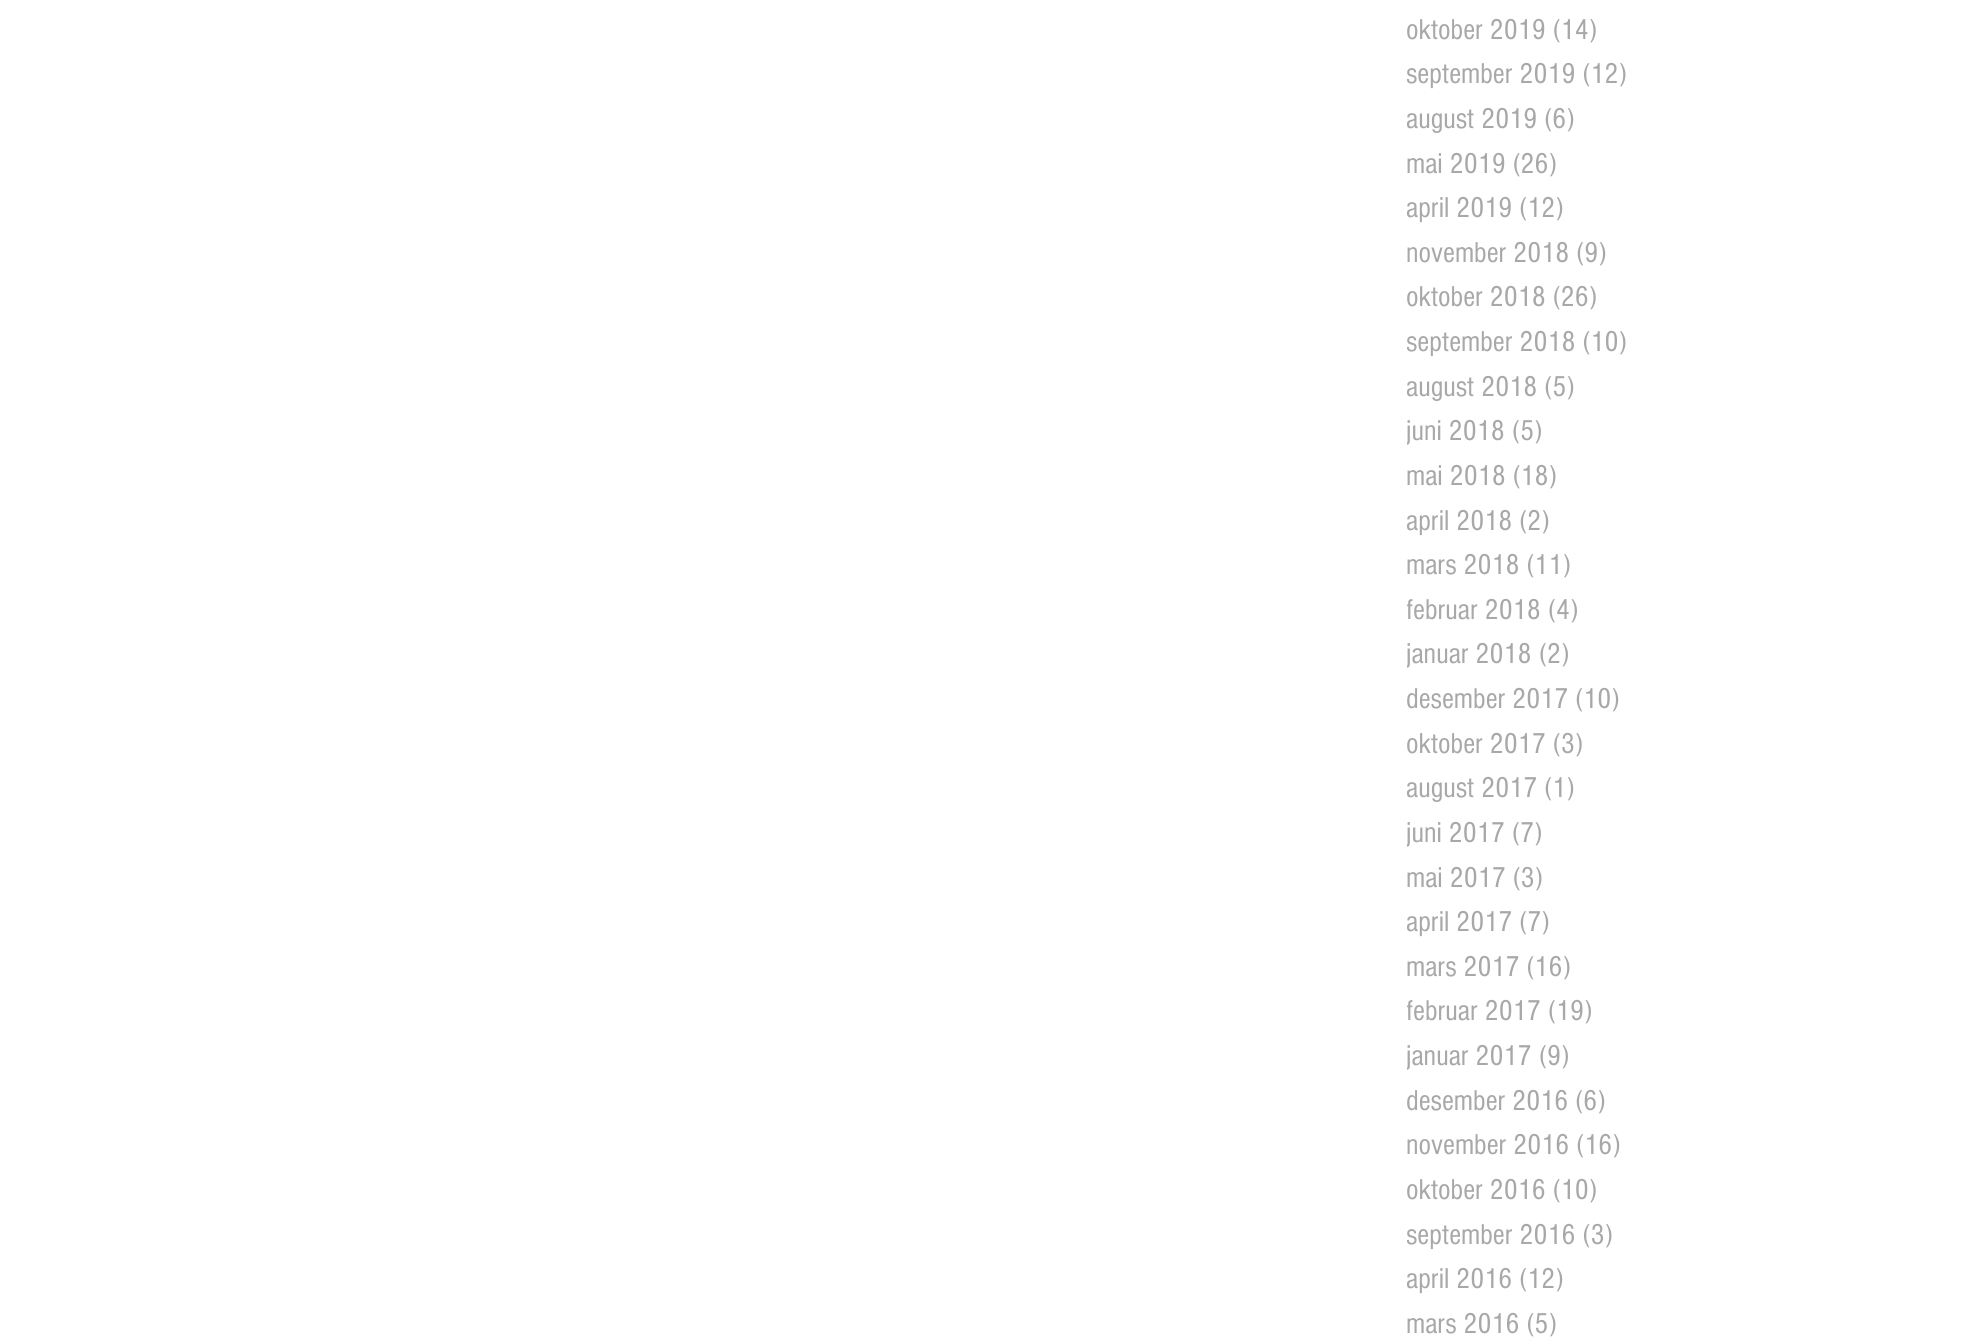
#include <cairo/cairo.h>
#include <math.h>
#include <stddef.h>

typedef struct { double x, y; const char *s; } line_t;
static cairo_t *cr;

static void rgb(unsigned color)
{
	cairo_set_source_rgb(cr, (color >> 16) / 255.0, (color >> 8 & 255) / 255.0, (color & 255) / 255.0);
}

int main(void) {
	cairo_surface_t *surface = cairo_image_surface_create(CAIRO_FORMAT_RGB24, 1975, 1343);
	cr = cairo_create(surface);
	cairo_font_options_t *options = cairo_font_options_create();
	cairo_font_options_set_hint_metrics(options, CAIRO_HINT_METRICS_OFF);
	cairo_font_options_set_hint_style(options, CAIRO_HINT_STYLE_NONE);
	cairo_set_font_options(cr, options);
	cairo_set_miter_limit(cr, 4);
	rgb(0xffffff);
	cairo_paint(cr);
	cairo_select_font_face(cr, "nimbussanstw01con", CAIRO_FONT_SLANT_NORMAL, CAIRO_FONT_WEIGHT_NORMAL);
	cairo_set_font_size(cr, 29.75);
	rgb(0xa8a8a8);
	{
		static const line_t items[] = {
			{1406, 39, "oktober 2019 (14)"},
			{1406, 83, "september 2019 (12)"},
			{1406, 128, "august 2019 (6)"},
			{1406, 173, "mai 2019 (26)"},
			{1406, 217, "april 2019 (12)"},
			{1406, 262, "november 2018 (9)"},
			{1406, 306, "oktober 2018 (26)"},
			{1406, 351, "september 2018 (10)"},
			{1406, 396, "august 2018 (5)"},
		};
		for (size_t i = 0; i < sizeof items / sizeof *items; i++) {
			cairo_move_to(cr, items[i].x, items[i].y);
			cairo_show_text(cr, items[i].s);
		}
	}
	cairo_save(cr);
	cairo_rectangle(cr, 1407, 410, 135, 43);
	cairo_clip(cr);
	cairo_move_to(cr, 1406, 440);
	cairo_show_text(cr, "juni 2018");
	cairo_restore(cr);
	{
		static const line_t items[] = {
			{1512, 440, "(5)"},
			{1406, 485, "mai 2018 (18)"},
			{1406, 530, "april 2018 (2)"},
			{1406, 574, "mars 2018 (11)"},
		};
		for (size_t i = 0; i < sizeof items / sizeof *items; i++) {
			cairo_move_to(cr, items[i].x, items[i].y);
			cairo_show_text(cr, items[i].s);
		}
	}
	cairo_save(cr);
	cairo_rectangle(cr, 1407, 588, 172, 44);
	cairo_clip(cr);
	cairo_move_to(cr, 1406, 619);
	cairo_show_text(cr, "februar 2018");
	cairo_restore(cr);
	cairo_move_to(cr, 1548, 619);
	cairo_show_text(cr, "(4)");
	cairo_save(cr);
	cairo_rectangle(cr, 1407, 632, 161, 45);
	cairo_clip(cr);
	cairo_move_to(cr, 1406, 663);
	cairo_show_text(cr, "januar 2018");
	cairo_restore(cr);
	{
		static const line_t items[] = {
			{1539, 663, "(2)"},
			{1406, 708, "desember 2017 (10)"},
			{1406, 753, "oktober 2017 (3)"},
			{1406, 797, "august 2017 (1)"},
		};
		for (size_t i = 0; i < sizeof items / sizeof *items; i++) {
			cairo_move_to(cr, items[i].x, items[i].y);
			cairo_show_text(cr, items[i].s);
		}
	}
	cairo_save(cr);
	cairo_rectangle(cr, 1407, 810, 135, 46);
	cairo_clip(cr);
	cairo_move_to(cr, 1406, 842);
	cairo_show_text(cr, "juni 2017");
	cairo_restore(cr);
	{
		static const line_t items[] = {
			{1512, 842, "(7)"},
			{1406, 887, "mai 2017 (3)"},
			{1406, 931, "april 2017 (7)"},
			{1406, 976, "mars 2017 (16)"},
		};
		for (size_t i = 0; i < sizeof items / sizeof *items; i++) {
			cairo_move_to(cr, items[i].x, items[i].y);
			cairo_show_text(cr, items[i].s);
		}
	}
	cairo_save(cr);
	cairo_rectangle(cr, 1407, 989, 186, 45);
	cairo_clip(cr);
	cairo_move_to(cr, 1406, 1020);
	cairo_show_text(cr, "februar 2017");
	cairo_restore(cr);
	cairo_move_to(cr, 1548, 1020);
	cairo_show_text(cr, "(19)");
	cairo_save(cr);
	cairo_rectangle(cr, 1407, 1034, 161, 44);
	cairo_clip(cr);
	cairo_move_to(cr, 1406, 1065);
	cairo_show_text(cr, "januar 2017");
	cairo_restore(cr);
	{
		static const line_t items[] = {
			{1539, 1065, "(9)"},
			{1406, 1110, "desember 2016 (6)"},
			{1406, 1154, "november 2016 (16)"},
			{1406, 1199, "oktober 2016 (10)"},
			{1406, 1244, "september 2016 (3)"},
			{1406, 1288, "april 2016 (12)"},
			{1406, 1333, "mars 2016 (5)"},
		};
		for (size_t i = 0; i < sizeof items / sizeof *items; i++) {
			cairo_move_to(cr, items[i].x, items[i].y);
			cairo_show_text(cr, items[i].s);
		}
	}
	cairo_surface_write_to_png(surface, "page.png");
	cairo_font_options_destroy(options);
	cairo_destroy(cr);
	cairo_surface_destroy(surface);
	return 0;
}
